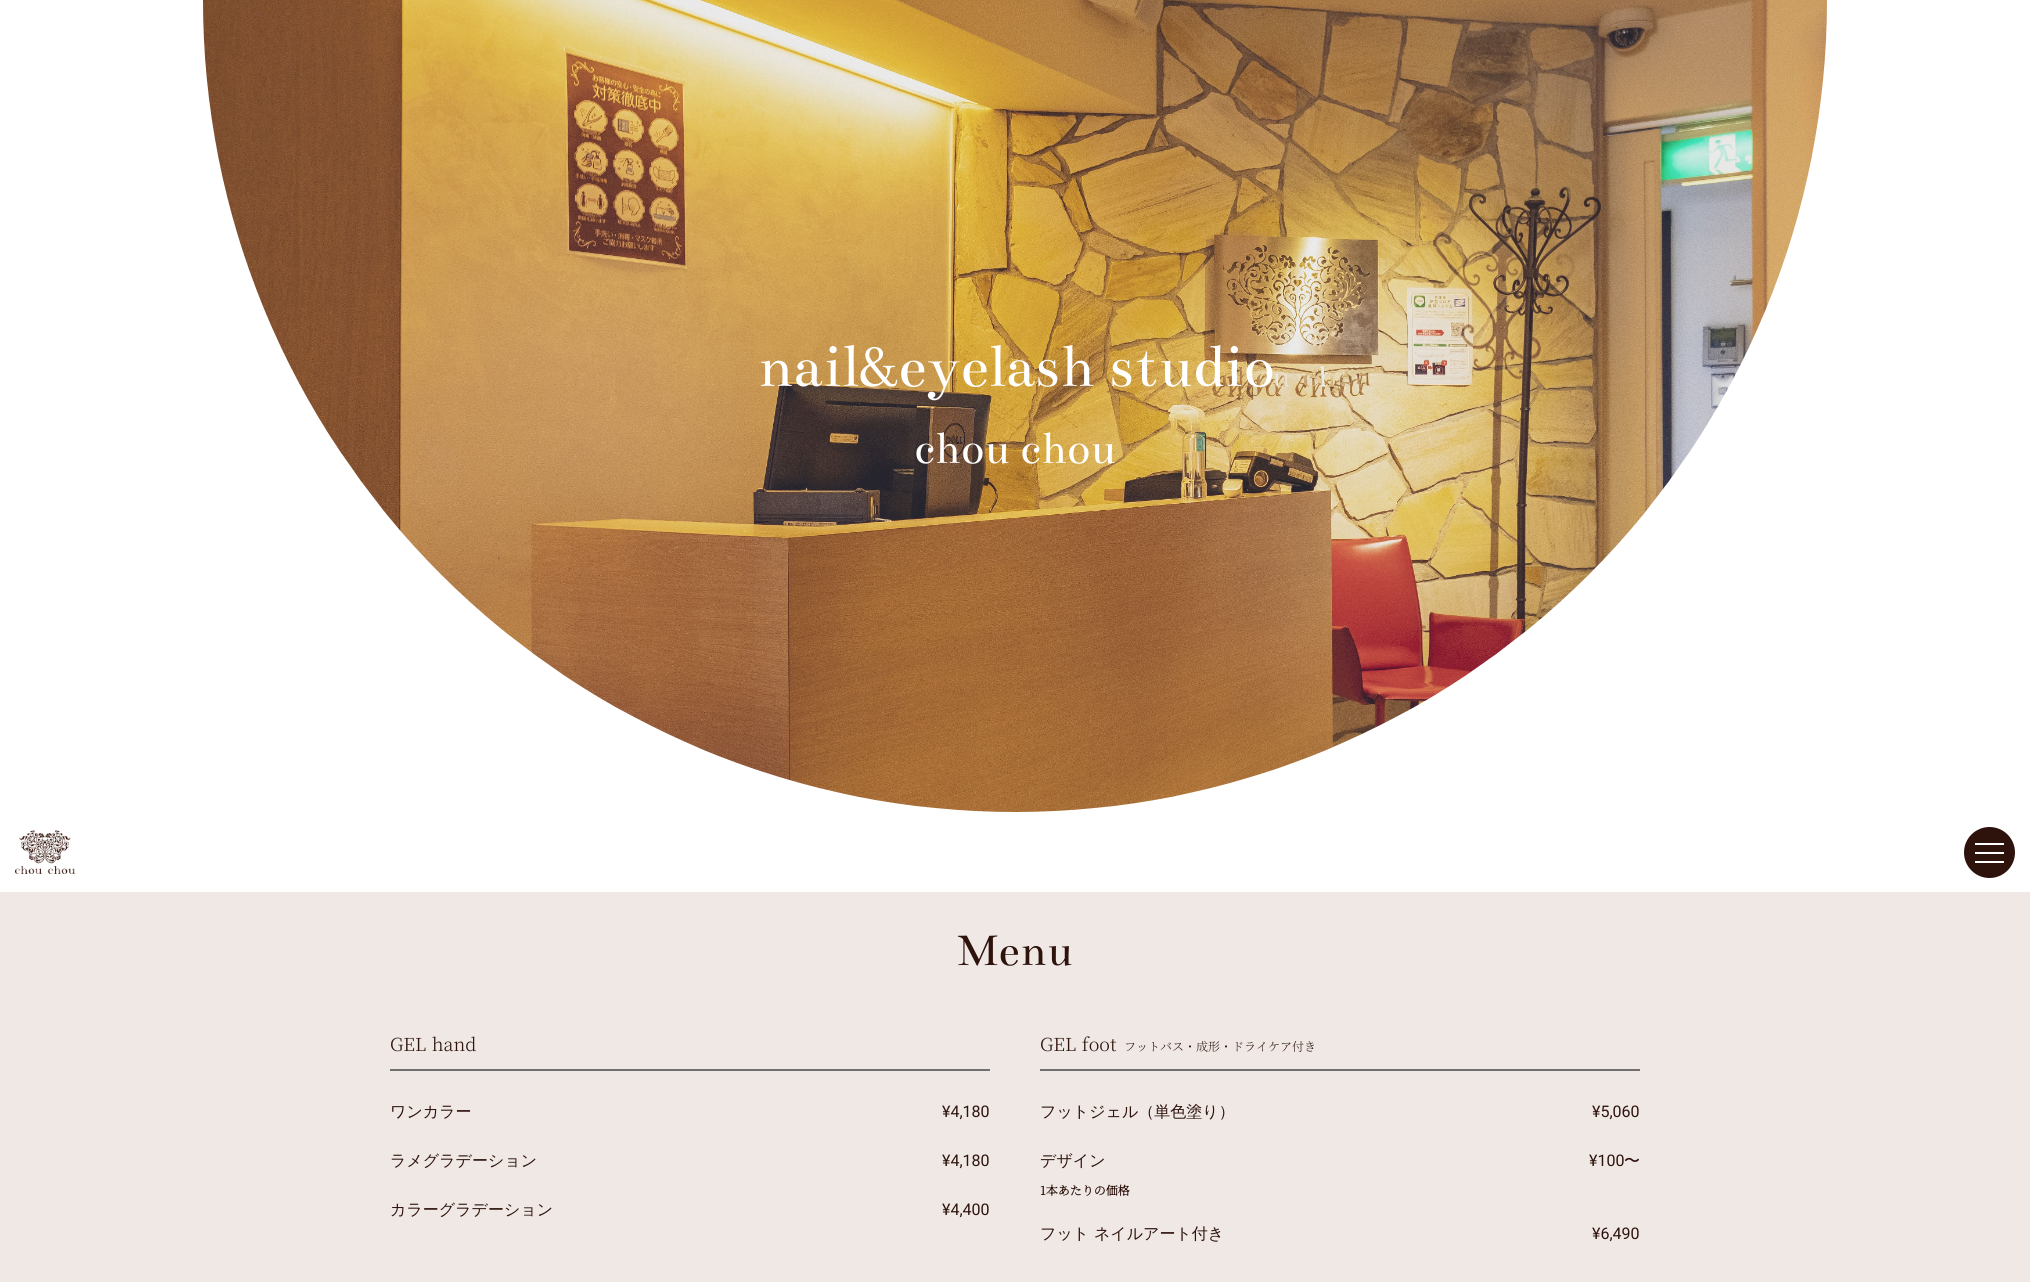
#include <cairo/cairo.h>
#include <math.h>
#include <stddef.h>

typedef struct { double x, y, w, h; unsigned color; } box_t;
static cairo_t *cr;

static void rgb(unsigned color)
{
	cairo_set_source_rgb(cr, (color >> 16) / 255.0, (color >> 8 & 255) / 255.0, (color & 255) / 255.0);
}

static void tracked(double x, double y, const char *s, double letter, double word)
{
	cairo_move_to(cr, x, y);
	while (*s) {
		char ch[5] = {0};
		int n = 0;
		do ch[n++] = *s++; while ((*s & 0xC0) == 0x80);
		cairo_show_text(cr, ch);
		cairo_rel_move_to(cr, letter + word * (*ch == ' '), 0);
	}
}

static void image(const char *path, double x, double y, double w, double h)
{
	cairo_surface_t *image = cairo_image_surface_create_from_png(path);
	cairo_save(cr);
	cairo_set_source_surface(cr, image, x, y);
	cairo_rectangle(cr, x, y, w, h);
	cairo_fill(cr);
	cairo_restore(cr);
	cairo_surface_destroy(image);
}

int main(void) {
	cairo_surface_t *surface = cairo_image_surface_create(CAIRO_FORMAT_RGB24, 2030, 1282);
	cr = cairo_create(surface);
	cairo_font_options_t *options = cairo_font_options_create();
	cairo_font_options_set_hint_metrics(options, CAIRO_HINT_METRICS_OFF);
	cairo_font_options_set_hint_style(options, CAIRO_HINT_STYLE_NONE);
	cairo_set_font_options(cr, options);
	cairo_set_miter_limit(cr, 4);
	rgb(0xffffff);
	cairo_paint(cr);
	image("img/1.png", 203, 0, 1624, 812);
	image("img/2.png", 15, 830, 60, 44);
	rgb(0x2d130c);
	cairo_arc(cr, 1989.5, 852.5, 25.5, 0, 2 * M_PI);
	cairo_fill(cr);
	{
		static const box_t items[] = {
			{1975, 843, 29, 2, 0xffffff},
			{1975, 852, 29, 2, 0xffffff},
			{1975, 861, 29, 2, 0xffffff},
			{0, 892, 2030, 390, 0xf0e8e5},
			{390, 1069, 600, 2, 0x707070},
			{1040, 1069, 600, 2, 0x707070},
		};
		for (size_t i = 0; i < sizeof items / sizeof *items; i++) {
			rgb(items[i].color);
			cairo_rectangle(cr, items[i].x, items[i].y, items[i].w, items[i].h);
			cairo_fill(cr);
		}
	}
	cairo_select_font_face(cr, "Bentham", CAIRO_FONT_SLANT_NORMAL, CAIRO_FONT_WEIGHT_NORMAL);
	cairo_set_font_size(cr, 64);
	rgb(0xffffff);
	tracked(757, 386, "nail&eyelash studio", 0, 1);
	cairo_set_font_size(cr, 48);
	tracked(914, 463, "chou chou", 0, 1);
	rgb(0x2d130c);
	cairo_move_to(cr, 957, 965);
	cairo_show_text(cr, "Menu");
	cairo_select_font_face(cr, "Noto Serif JP Light", CAIRO_FONT_SLANT_NORMAL, CAIRO_FONT_WEIGHT_NORMAL);
	cairo_set_font_size(cr, 18);
	tracked(390, 1051, "GEL hand", 0, 1);
	cairo_select_font_face(cr, "WenQuanYi Zen Hei Medium", CAIRO_FONT_SLANT_NORMAL, CAIRO_FONT_WEIGHT_NORMAL);
	cairo_set_font_size(cr, 16);
	cairo_move_to(cr, 390, 1117);
	cairo_show_text(cr, "ワンカラー");
	cairo_select_font_face(cr, "Roboto", CAIRO_FONT_SLANT_NORMAL, CAIRO_FONT_WEIGHT_NORMAL);
	cairo_move_to(cr, 942, 1117);
	cairo_show_text(cr, "¥4,180");
	cairo_select_font_face(cr, "WenQuanYi Zen Hei Medium", CAIRO_FONT_SLANT_NORMAL, CAIRO_FONT_WEIGHT_NORMAL);
	cairo_move_to(cr, 390, 1166);
	cairo_show_text(cr, "ラメグラデーション");
	cairo_select_font_face(cr, "Roboto", CAIRO_FONT_SLANT_NORMAL, CAIRO_FONT_WEIGHT_NORMAL);
	cairo_move_to(cr, 942, 1166);
	cairo_show_text(cr, "¥4,180");
	cairo_select_font_face(cr, "WenQuanYi Zen Hei Medium", CAIRO_FONT_SLANT_NORMAL, CAIRO_FONT_WEIGHT_NORMAL);
	cairo_move_to(cr, 390, 1215);
	cairo_show_text(cr, "カラーグラデーション");
	cairo_select_font_face(cr, "Roboto", CAIRO_FONT_SLANT_NORMAL, CAIRO_FONT_WEIGHT_NORMAL);
	cairo_move_to(cr, 942, 1215);
	cairo_show_text(cr, "¥4,400");
	cairo_select_font_face(cr, "Noto Serif JP Light", CAIRO_FONT_SLANT_NORMAL, CAIRO_FONT_WEIGHT_NORMAL);
	cairo_set_font_size(cr, 18);
	tracked(1040, 1051, "GEL foot", 0, 1);
	cairo_set_font_size(cr, 12);
	cairo_move_to(cr, 1124, 1051);
	cairo_show_text(cr, "フットバス・成形・ドライケア付き");
	cairo_select_font_face(cr, "WenQuanYi Zen Hei Medium", CAIRO_FONT_SLANT_NORMAL, CAIRO_FONT_WEIGHT_NORMAL);
	cairo_set_font_size(cr, 16);
	cairo_move_to(cr, 1040, 1117);
	cairo_show_text(cr, "フットジェル（単色塗り）");
	cairo_select_font_face(cr, "Roboto", CAIRO_FONT_SLANT_NORMAL, CAIRO_FONT_WEIGHT_NORMAL);
	cairo_move_to(cr, 1592, 1117);
	cairo_show_text(cr, "¥5,060");
	cairo_select_font_face(cr, "WenQuanYi Zen Hei Medium", CAIRO_FONT_SLANT_NORMAL, CAIRO_FONT_WEIGHT_NORMAL);
	cairo_move_to(cr, 1040, 1166);
	cairo_show_text(cr, "デザイン");
	cairo_select_font_face(cr, "Roboto", CAIRO_FONT_SLANT_NORMAL, CAIRO_FONT_WEIGHT_NORMAL);
	cairo_move_to(cr, 1589, 1166);
	cairo_show_text(cr, "¥100");
	cairo_select_font_face(cr, "WenQuanYi Zen Hei Medium", CAIRO_FONT_SLANT_NORMAL, CAIRO_FONT_WEIGHT_NORMAL);
	cairo_move_to(cr, 1624, 1166);
	cairo_show_text(cr, "〜");
	cairo_select_font_face(cr, "Noto Serif JP", CAIRO_FONT_SLANT_NORMAL, CAIRO_FONT_WEIGHT_BOLD);
	cairo_set_font_size(cr, 12);
	cairo_move_to(cr, 1040, 1195);
	cairo_show_text(cr, "1本あたりの価格");
	cairo_select_font_face(cr, "WenQuanYi Zen Hei Medium", CAIRO_FONT_SLANT_NORMAL, CAIRO_FONT_WEIGHT_NORMAL);
	cairo_set_font_size(cr, 16);
	cairo_move_to(cr, 1040, 1239);
	cairo_show_text(cr, "フット ネイルアート付き");
	cairo_select_font_face(cr, "Roboto", CAIRO_FONT_SLANT_NORMAL, CAIRO_FONT_WEIGHT_NORMAL);
	cairo_move_to(cr, 1592, 1239);
	cairo_show_text(cr, "¥6,490");
	cairo_surface_write_to_png(surface, "page.png");
	cairo_font_options_destroy(options);
	cairo_destroy(cr);
	cairo_surface_destroy(surface);
	return 0;
}
